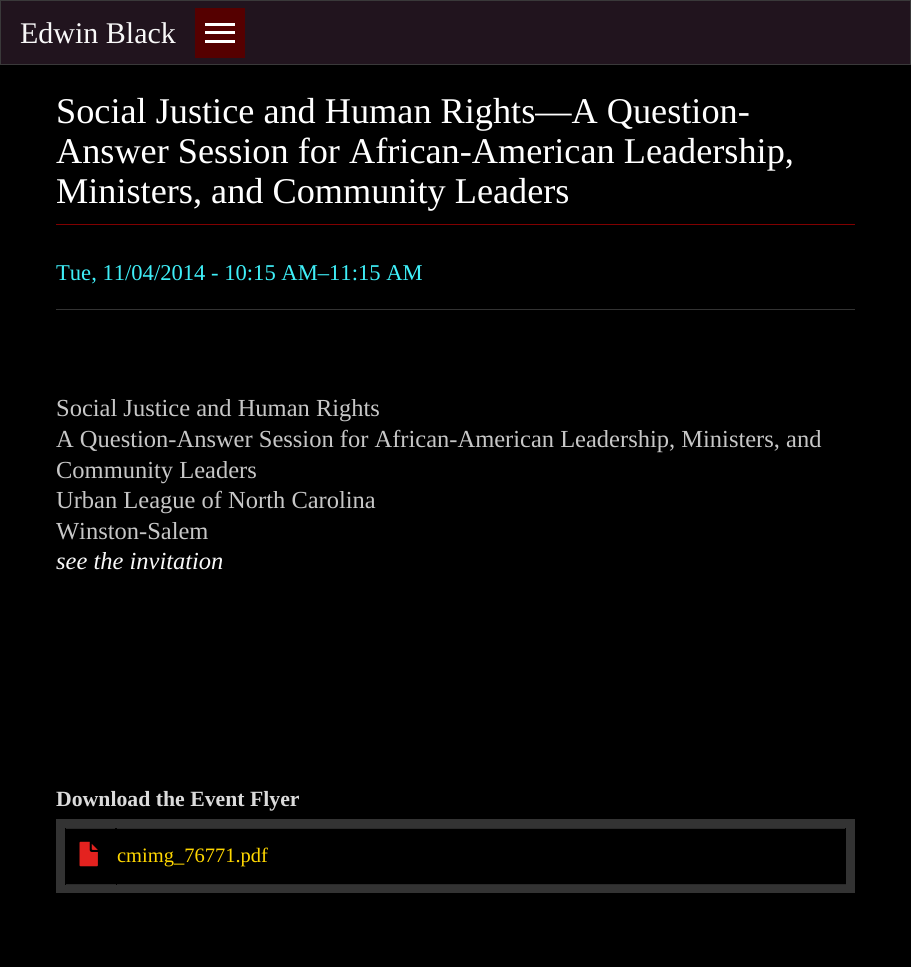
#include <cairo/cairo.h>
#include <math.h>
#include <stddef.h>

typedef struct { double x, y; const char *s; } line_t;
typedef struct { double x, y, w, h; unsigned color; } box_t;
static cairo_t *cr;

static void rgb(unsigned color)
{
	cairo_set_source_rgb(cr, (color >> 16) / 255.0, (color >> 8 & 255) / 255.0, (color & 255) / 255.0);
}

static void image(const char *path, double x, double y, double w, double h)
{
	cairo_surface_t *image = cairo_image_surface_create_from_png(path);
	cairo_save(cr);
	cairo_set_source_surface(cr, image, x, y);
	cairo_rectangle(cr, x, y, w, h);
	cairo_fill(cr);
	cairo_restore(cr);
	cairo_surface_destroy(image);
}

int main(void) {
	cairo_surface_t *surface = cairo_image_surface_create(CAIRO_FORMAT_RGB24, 911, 967);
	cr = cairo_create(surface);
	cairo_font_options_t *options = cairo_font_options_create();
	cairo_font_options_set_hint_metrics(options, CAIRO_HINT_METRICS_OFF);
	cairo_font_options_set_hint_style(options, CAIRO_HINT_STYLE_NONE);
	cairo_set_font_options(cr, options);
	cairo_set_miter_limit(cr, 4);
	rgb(0x000000);
	cairo_paint(cr);
	rgb(0x21141e);
	cairo_rectangle(cr, 0.5, 0.5, 910, 64);
	cairo_fill_preserve(cr);
	rgb(0x3a393a);
	cairo_set_line_width(cr, 1);
	cairo_stroke(cr);
	{
		static const box_t items[] = {
			{195, 8, 50, 50, 0x550000},
			{205, 23, 30, 3, 0xffffff},
			{205, 31, 30, 3, 0xffffff},
			{205, 40, 30, 3, 0xffffff},
			{56, 224, 799, 1, 0x800000},
			{56, 309, 799, 1, 0x333333},
			{56, 819, 799, 74, 0x333333},
			{66, 829, 49, 55, 0x000000},
			{65, 828, 781, 1, 0x2a2a2a},
			{115, 828, 1, 57, 0x000000},
			{65, 884, 51, 1, 0x2a2a2a},
			{65, 828, 1, 57, 0x000000},
		};
		for (size_t i = 0; i < sizeof items / sizeof *items; i++) {
			rgb(items[i].color);
			cairo_rectangle(cr, items[i].x, items[i].y, items[i].w, items[i].h);
			cairo_fill(cr);
		}
	}
	image("img/1.png", 79, 841, 19, 26);
	{
		static const box_t items[] = {
			{117, 829, 728, 55, 0x000000},
			{845, 828, 1, 57, 0x000000},
			{116, 884, 730, 1, 0x2a2a2a},
			{116, 828, 1, 57, 0x000000},
		};
		for (size_t i = 0; i < sizeof items / sizeof *items; i++) {
			rgb(items[i].color);
			cairo_rectangle(cr, items[i].x, items[i].y, items[i].w, items[i].h);
			cairo_fill(cr);
		}
	}
	cairo_select_font_face(cr, "Liberation Serif", CAIRO_FONT_SLANT_NORMAL, CAIRO_FONT_WEIGHT_NORMAL);
	cairo_set_font_size(cr, 30);
	rgb(0xf8f8f8);
	cairo_move_to(cr, 20, 43);
	cairo_show_text(cr, "Edwin Black");
	cairo_set_font_size(cr, 36.25);
	rgb(0xffffff);
	{
		static const line_t items[] = {
			{56, 123, "Social Justice and Human Rights—A Question-"},
			{56, 163, "Answer Session for African-American Leadership,"},
			{56, 203, "Ministers, and Community Leaders"},
		};
		for (size_t i = 0; i < sizeof items / sizeof *items; i++) {
			cairo_move_to(cr, items[i].x, items[i].y);
			cairo_show_text(cr, items[i].s);
		}
	}
	cairo_set_font_size(cr, 22.6);
	rgb(0x3feff8);
	cairo_move_to(cr, 56, 280);
	cairo_show_text(cr, "Tue, 11/04/2014 - 10:15 AM–11:15 AM");
	cairo_set_font_size(cr, 24.5);
	rgb(0xc7c7c7);
	{
		static const line_t items[] = {
			{56, 416, "Social Justice and Human Rights"},
			{56, 447, "A Question-Answer Session for African-American Leadership, Ministers, and"},
			{56, 478, "Community Leaders"},
			{56, 508, "Urban League of North Carolina"},
			{56, 539, "Winston-Salem"},
		};
		for (size_t i = 0; i < sizeof items / sizeof *items; i++) {
			cairo_move_to(cr, items[i].x, items[i].y);
			cairo_show_text(cr, items[i].s);
		}
	}
	cairo_select_font_face(cr, "Liberation Serif", CAIRO_FONT_SLANT_ITALIC, CAIRO_FONT_WEIGHT_NORMAL);
	rgb(0xf8f8f8);
	cairo_move_to(cr, 56, 569);
	cairo_show_text(cr, "see the invitation");
	cairo_select_font_face(cr, "Liberation Serif", CAIRO_FONT_SLANT_NORMAL, CAIRO_FONT_WEIGHT_BOLD);
	cairo_set_font_size(cr, 21.75);
	rgb(0xdbdbdb);
	cairo_move_to(cr, 56, 806);
	cairo_show_text(cr, "Download the Event Flyer");
	cairo_select_font_face(cr, "Liberation Serif", CAIRO_FONT_SLANT_NORMAL, CAIRO_FONT_WEIGHT_NORMAL);
	cairo_set_font_size(cr, 20.5);
	rgb(0xffd700);
	cairo_move_to(cr, 117, 862);
	cairo_show_text(cr, "cmimg_76771.pdf");
	cairo_surface_write_to_png(surface, "page.png");
	cairo_font_options_destroy(options);
	cairo_destroy(cr);
	cairo_surface_destroy(surface);
	return 0;
}
